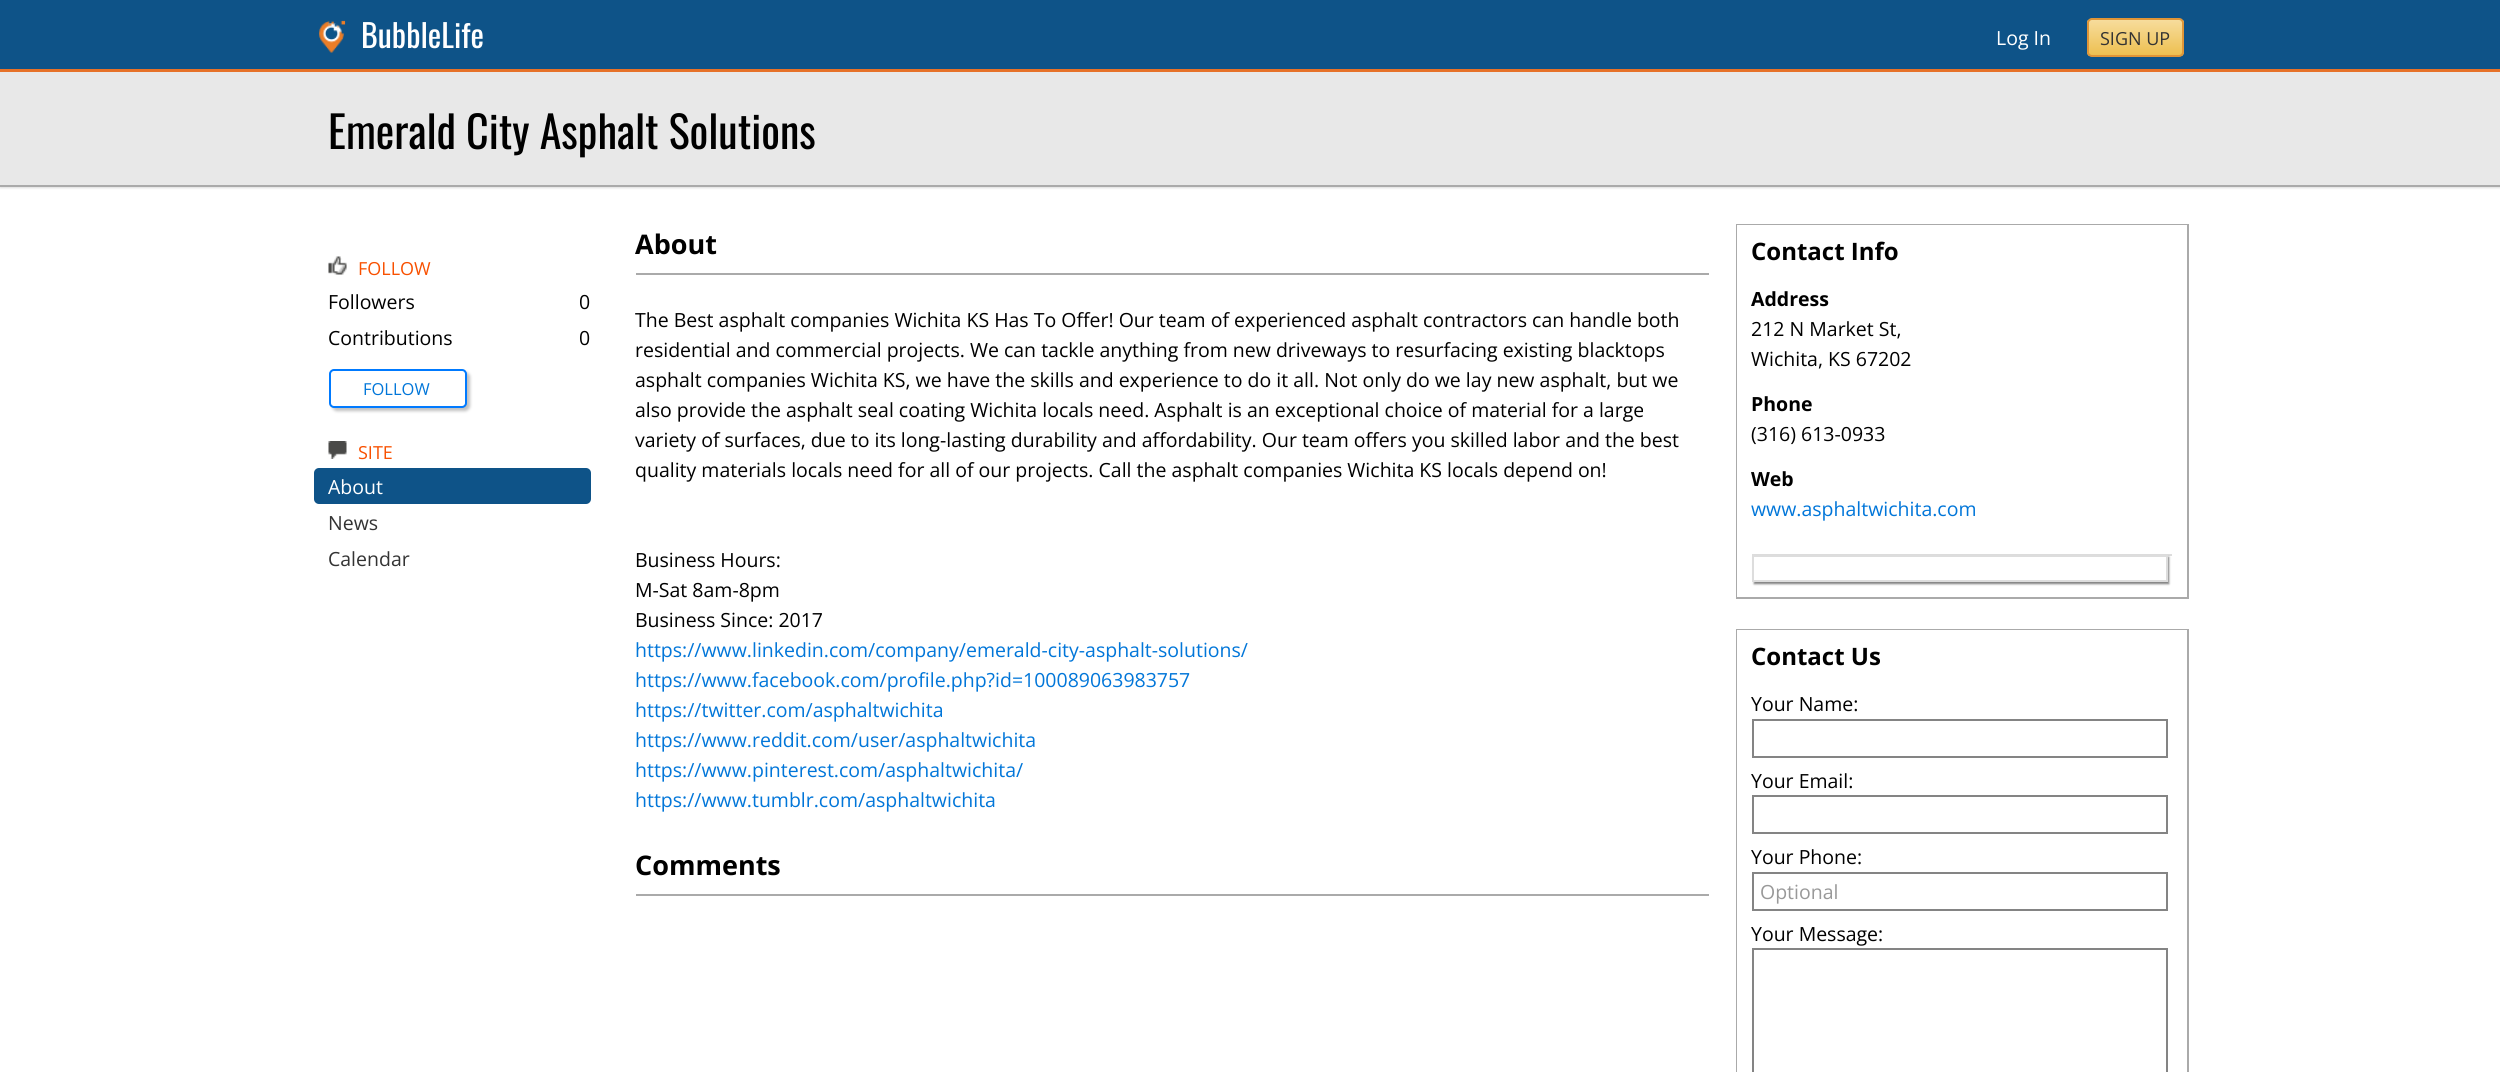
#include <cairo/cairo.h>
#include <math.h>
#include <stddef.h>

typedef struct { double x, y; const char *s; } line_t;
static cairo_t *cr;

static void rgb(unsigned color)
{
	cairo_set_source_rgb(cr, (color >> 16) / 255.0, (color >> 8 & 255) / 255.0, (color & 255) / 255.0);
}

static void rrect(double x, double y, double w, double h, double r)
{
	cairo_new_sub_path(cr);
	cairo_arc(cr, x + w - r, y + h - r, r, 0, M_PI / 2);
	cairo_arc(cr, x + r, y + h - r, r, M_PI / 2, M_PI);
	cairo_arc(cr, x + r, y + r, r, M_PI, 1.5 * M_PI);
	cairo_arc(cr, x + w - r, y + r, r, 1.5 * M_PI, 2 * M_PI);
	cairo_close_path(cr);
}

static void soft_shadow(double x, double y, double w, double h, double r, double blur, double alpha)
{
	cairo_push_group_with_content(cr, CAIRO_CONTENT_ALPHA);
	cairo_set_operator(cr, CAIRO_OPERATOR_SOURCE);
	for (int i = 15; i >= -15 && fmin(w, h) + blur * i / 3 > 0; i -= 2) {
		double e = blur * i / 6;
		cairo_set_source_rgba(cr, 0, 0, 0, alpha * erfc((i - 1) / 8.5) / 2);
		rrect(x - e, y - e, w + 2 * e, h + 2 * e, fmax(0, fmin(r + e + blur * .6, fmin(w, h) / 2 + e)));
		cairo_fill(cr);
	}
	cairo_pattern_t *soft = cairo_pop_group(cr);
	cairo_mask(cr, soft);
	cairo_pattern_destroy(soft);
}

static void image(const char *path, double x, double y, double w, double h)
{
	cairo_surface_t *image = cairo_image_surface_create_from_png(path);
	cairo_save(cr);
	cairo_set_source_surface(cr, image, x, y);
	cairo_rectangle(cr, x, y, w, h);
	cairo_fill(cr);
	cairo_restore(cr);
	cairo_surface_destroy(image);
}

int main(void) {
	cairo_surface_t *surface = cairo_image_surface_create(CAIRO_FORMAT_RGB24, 2500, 1072);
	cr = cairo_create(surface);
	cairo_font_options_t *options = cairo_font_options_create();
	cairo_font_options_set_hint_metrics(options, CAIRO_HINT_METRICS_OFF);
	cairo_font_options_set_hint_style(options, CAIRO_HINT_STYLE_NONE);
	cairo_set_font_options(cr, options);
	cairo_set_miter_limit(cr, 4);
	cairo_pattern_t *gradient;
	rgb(0xffffff);
	cairo_paint(cr);
	rgb(0x0e5388);
	cairo_rectangle(cr, 0, 0, 2500, 69);
	cairo_fill(cr);
	rgb(0xe67127);
	cairo_rectangle(cr, 0, 69, 2500, 3);
	cairo_fill(cr);
	image("img/1.png", 319, 20, 27, 33);
	cairo_save(cr);
	rrect(2087, 18, 97, 39, 5);
	cairo_clip(cr);
	gradient = cairo_pattern_create_linear(2135, 19, 2135, 56);
	cairo_pattern_add_color_stop_rgba(gradient, 0, 0.969, 0.867, 0.62, 1);
	cairo_pattern_add_color_stop_rgba(gradient, 1, 0.929, 0.749, 0.31, 1);
	cairo_set_source(cr, gradient);
	cairo_pattern_destroy(gradient);
	cairo_rectangle(cr, 2087, 20, 97, 36);
	cairo_fill(cr);
	cairo_restore(cr);
	rrect(2088, 19, 95, 37, 4);
	rgb(0xdf9538);
	cairo_stroke(cr);
	rgb(0xdddddd);
	soft_shadow(0, 74, 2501, 114, 0, 1, 1);
	rgb(0xe8e8e8);
	cairo_rectangle(cr, 0, 72, 2500, 113);
	cairo_fill(cr);
	rgb(0xaaaaaa);
	cairo_rectangle(cr, 0, 185, 2500, 2);
	cairo_fill(cr);
	image("img/2.png", 328, 256, 19, 19);
	rgb(0xc0c0c0);
	soft_shadow(332, 372, 138, 39, 5, 1.5, 1);
	rgb(0xffffff);
	rrect(330, 370, 136, 37, 4);
	cairo_fill_preserve(cr);
	rgb(0x007aff);
	cairo_stroke(cr);
	image("img/3.png", 328, 441, 19, 18);
	rgb(0x0e5388);
	rrect(314, 468, 277, 36, 5);
	cairo_fill(cr);
	rgb(0xaaaaaa);
	cairo_rectangle(cr, 636, 273, 1073, 2);
	cairo_fill(cr);
	cairo_rectangle(cr, 636, 894, 1073, 2);
	cairo_fill(cr);
	cairo_rectangle(cr, 1737, 225, 451, 373);
	cairo_stroke(cr);
	rgb(0xffffff);
	cairo_rectangle(cr, 1737, 225, 450, 372);
	cairo_fill(cr);
	rgb(0xdddddd);
	cairo_rectangle(cr, 1752, 554, 420, 2);
	cairo_fill(cr);
	cairo_save(cr);
	cairo_set_fill_rule(cr, CAIRO_FILL_RULE_EVEN_ODD);
	cairo_new_path(cr);
	cairo_move_to(cr, 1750, 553);
	cairo_line_to(cr, 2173, 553);
	cairo_line_to(cr, 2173, 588);
	cairo_line_to(cr, 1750, 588);
	cairo_close_path(cr);
	cairo_move_to(cr, 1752, 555);
	cairo_line_to(cr, 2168, 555);
	cairo_line_to(cr, 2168, 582);
	cairo_line_to(cr, 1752, 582);
	cairo_close_path(cr);
	cairo_clip(cr);
	rgb(0x808080);
	soft_shadow(1754, 557, 415, 27, 0, 1, 1);
	cairo_restore(cr);
	cairo_rectangle(cr, 1753, 556, 414, 25);
	cairo_stroke(cr);
	cairo_rectangle(cr, 1737, 630, 451, 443);
	rgb(0xaaaaaa);
	cairo_stroke(cr);
	rgb(0xffffff);
	cairo_rectangle(cr, 1737, 630, 450, 442);
	cairo_fill(cr);
	cairo_rectangle(cr, 1753, 720, 414, 37);
	rgb(0x848484);
	cairo_stroke(cr);
	cairo_rectangle(cr, 1753, 796, 414, 37);
	cairo_stroke(cr);
	cairo_rectangle(cr, 1753, 873, 414, 37);
	cairo_stroke(cr);
	cairo_rectangle(cr, 1753, 949, 414, 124);
	cairo_stroke(cr);
	cairo_select_font_face(cr, "Oswald", CAIRO_FONT_SLANT_NORMAL, CAIRO_FONT_WEIGHT_NORMAL);
	cairo_set_font_size(cr, 32);
	rgb(0xffffff);
	cairo_move_to(cr, 361, 48);
	cairo_show_text(cr, "BubbleLife");
	cairo_select_font_face(cr, "Open Sans", CAIRO_FONT_SLANT_NORMAL, CAIRO_FONT_WEIGHT_NORMAL);
	cairo_set_font_size(cr, 19.5);
	cairo_move_to(cr, 1996, 45);
	cairo_show_text(cr, "Log In");
	cairo_set_font_size(cr, 18);
	rgb(0x333333);
	cairo_move_to(cr, 2100, 45);
	cairo_show_text(cr, "SIGN UP");
	cairo_select_font_face(cr, "Oswald", CAIRO_FONT_SLANT_NORMAL, CAIRO_FONT_WEIGHT_NORMAL);
	cairo_set_font_size(cr, 44);
	rgb(0x000000);
	cairo_move_to(cr, 328, 149);
	cairo_show_text(cr, "Emerald City Asphalt Solutions");
	cairo_select_font_face(cr, "Open Sans", CAIRO_FONT_SLANT_NORMAL, CAIRO_FONT_WEIGHT_NORMAL);
	cairo_set_font_size(cr, 18);
	rgb(0xf85000);
	cairo_move_to(cr, 358, 275);
	cairo_show_text(cr, "FOLLOW");
	cairo_set_font_size(cr, 19.5);
	rgb(0x000000);
	{
		static const line_t items[] = {
			{328, 309, "Followers"},
			{579, 309, "0"},
			{328, 345, "Contributions"},
			{579, 345, "0"},
		};
		for (size_t i = 0; i < sizeof items / sizeof *items; i++) {
			cairo_move_to(cr, items[i].x, items[i].y);
			cairo_show_text(cr, items[i].s);
		}
	}
	cairo_set_font_size(cr, 16.5);
	rgb(0x0176d9);
	cairo_move_to(cr, 363, 395);
	cairo_show_text(cr, "FOLLOW");
	cairo_set_font_size(cr, 18);
	rgb(0xf85000);
	cairo_move_to(cr, 358, 459);
	cairo_show_text(cr, "SITE");
	cairo_set_font_size(cr, 19.5);
	rgb(0xffffff);
	cairo_move_to(cr, 328, 494);
	cairo_show_text(cr, "About");
	rgb(0x333333);
	cairo_move_to(cr, 328, 530);
	cairo_show_text(cr, "News");
	cairo_move_to(cr, 328, 566);
	cairo_show_text(cr, "Calendar");
	cairo_select_font_face(cr, "Open Sans", CAIRO_FONT_SLANT_NORMAL, CAIRO_FONT_WEIGHT_BOLD);
	cairo_set_font_size(cr, 27);
	rgb(0x000000);
	cairo_move_to(cr, 635, 254);
	cairo_show_text(cr, "About");
	cairo_select_font_face(cr, "Open Sans", CAIRO_FONT_SLANT_NORMAL, CAIRO_FONT_WEIGHT_NORMAL);
	cairo_set_font_size(cr, 19.5);
	{
		static const line_t items[] = {
			{635, 327, "The Best asphalt companies Wichita KS Has To Offer! Our team of experienced asphalt contractors can handle both"},
			{635, 357, "residential and commercial projects. We can tackle anything from new driveways to resurfacing existing blacktops"},
			{635, 387, "asphalt companies Wichita KS, we have the skills and experience to do it all. Not only do we lay new asphalt, but we"},
			{635, 417, "also provide the asphalt seal coating Wichita locals need. Asphalt is an exceptional choice of material for a large"},
			{635, 447, "variety of surfaces, due to its long-lasting durability and affordability. Our team offers you skilled labor and the best"},
			{635, 477, "quality materials locals need for all of our projects. Call the asphalt companies Wichita KS locals depend on!"},
			{635, 567, "Business Hours:"},
			{635, 597, "M-Sat 8am-8pm"},
			{635, 627, "Business Since: 2017"},
		};
		for (size_t i = 0; i < sizeof items / sizeof *items; i++) {
			cairo_move_to(cr, items[i].x, items[i].y);
			cairo_show_text(cr, items[i].s);
		}
	}
	rgb(0x0176d9);
	{
		static const line_t items[] = {
			{635, 657, "https://www.linkedin.com/company/emerald-city-asphalt-solutions/"},
			{635, 687, "https://www.facebook.com/profile.php?id=100089063983757"},
			{635, 717, "https://twitter.com/asphaltwichita"},
			{635, 747, "https://www.reddit.com/user/asphaltwichita"},
			{635, 777, "https://www.pinterest.com/asphaltwichita/"},
			{635, 807, "https://www.tumblr.com/asphaltwichita"},
		};
		for (size_t i = 0; i < sizeof items / sizeof *items; i++) {
			cairo_move_to(cr, items[i].x, items[i].y);
			cairo_show_text(cr, items[i].s);
		}
	}
	cairo_select_font_face(cr, "Open Sans", CAIRO_FONT_SLANT_NORMAL, CAIRO_FONT_WEIGHT_BOLD);
	cairo_set_font_size(cr, 27);
	rgb(0x000000);
	cairo_move_to(cr, 635, 875);
	cairo_show_text(cr, "Comments");
	cairo_set_font_size(cr, 24);
	cairo_move_to(cr, 1751, 260);
	cairo_show_text(cr, "Contact Info");
	cairo_set_font_size(cr, 19.5);
	cairo_move_to(cr, 1751, 306);
	cairo_show_text(cr, "Address");
	cairo_select_font_face(cr, "Open Sans", CAIRO_FONT_SLANT_NORMAL, CAIRO_FONT_WEIGHT_NORMAL);
	cairo_move_to(cr, 1751, 336);
	cairo_show_text(cr, "212 N Market St,");
	cairo_move_to(cr, 1751, 366);
	cairo_show_text(cr, "Wichita, KS 67202");
	cairo_select_font_face(cr, "Open Sans", CAIRO_FONT_SLANT_NORMAL, CAIRO_FONT_WEIGHT_BOLD);
	cairo_move_to(cr, 1751, 411);
	cairo_show_text(cr, "Phone");
	cairo_select_font_face(cr, "Open Sans", CAIRO_FONT_SLANT_NORMAL, CAIRO_FONT_WEIGHT_NORMAL);
	cairo_move_to(cr, 1751, 441);
	cairo_show_text(cr, "(316) 613-0933");
	cairo_select_font_face(cr, "Open Sans", CAIRO_FONT_SLANT_NORMAL, CAIRO_FONT_WEIGHT_BOLD);
	cairo_move_to(cr, 1751, 486);
	cairo_show_text(cr, "Web");
	cairo_select_font_face(cr, "Open Sans", CAIRO_FONT_SLANT_NORMAL, CAIRO_FONT_WEIGHT_NORMAL);
	rgb(0x0176d9);
	cairo_move_to(cr, 1751, 516);
	cairo_show_text(cr, "www.asphaltwichita.com");
	cairo_select_font_face(cr, "Open Sans", CAIRO_FONT_SLANT_NORMAL, CAIRO_FONT_WEIGHT_BOLD);
	cairo_set_font_size(cr, 24);
	rgb(0x000000);
	cairo_move_to(cr, 1751, 665);
	cairo_show_text(cr, "Contact Us");
	cairo_select_font_face(cr, "Open Sans", CAIRO_FONT_SLANT_NORMAL, CAIRO_FONT_WEIGHT_NORMAL);
	cairo_set_font_size(cr, 19.5);
	{
		static const line_t items[] = {
			{1751, 711, "Your Name:"},
			{1751, 788, "Your Email:"},
			{1751, 864, "Your Phone:"},
		};
		for (size_t i = 0; i < sizeof items / sizeof *items; i++) {
			cairo_move_to(cr, items[i].x, items[i].y);
			cairo_show_text(cr, items[i].s);
		}
	}
	rgb(0x999999);
	cairo_move_to(cr, 1760, 899);
	cairo_show_text(cr, "Optional");
	rgb(0x000000);
	cairo_move_to(cr, 1751, 941);
	cairo_show_text(cr, "Your Message:");
	cairo_surface_write_to_png(surface, "page.png");
	cairo_font_options_destroy(options);
	cairo_destroy(cr);
	cairo_surface_destroy(surface);
	return 0;
}
